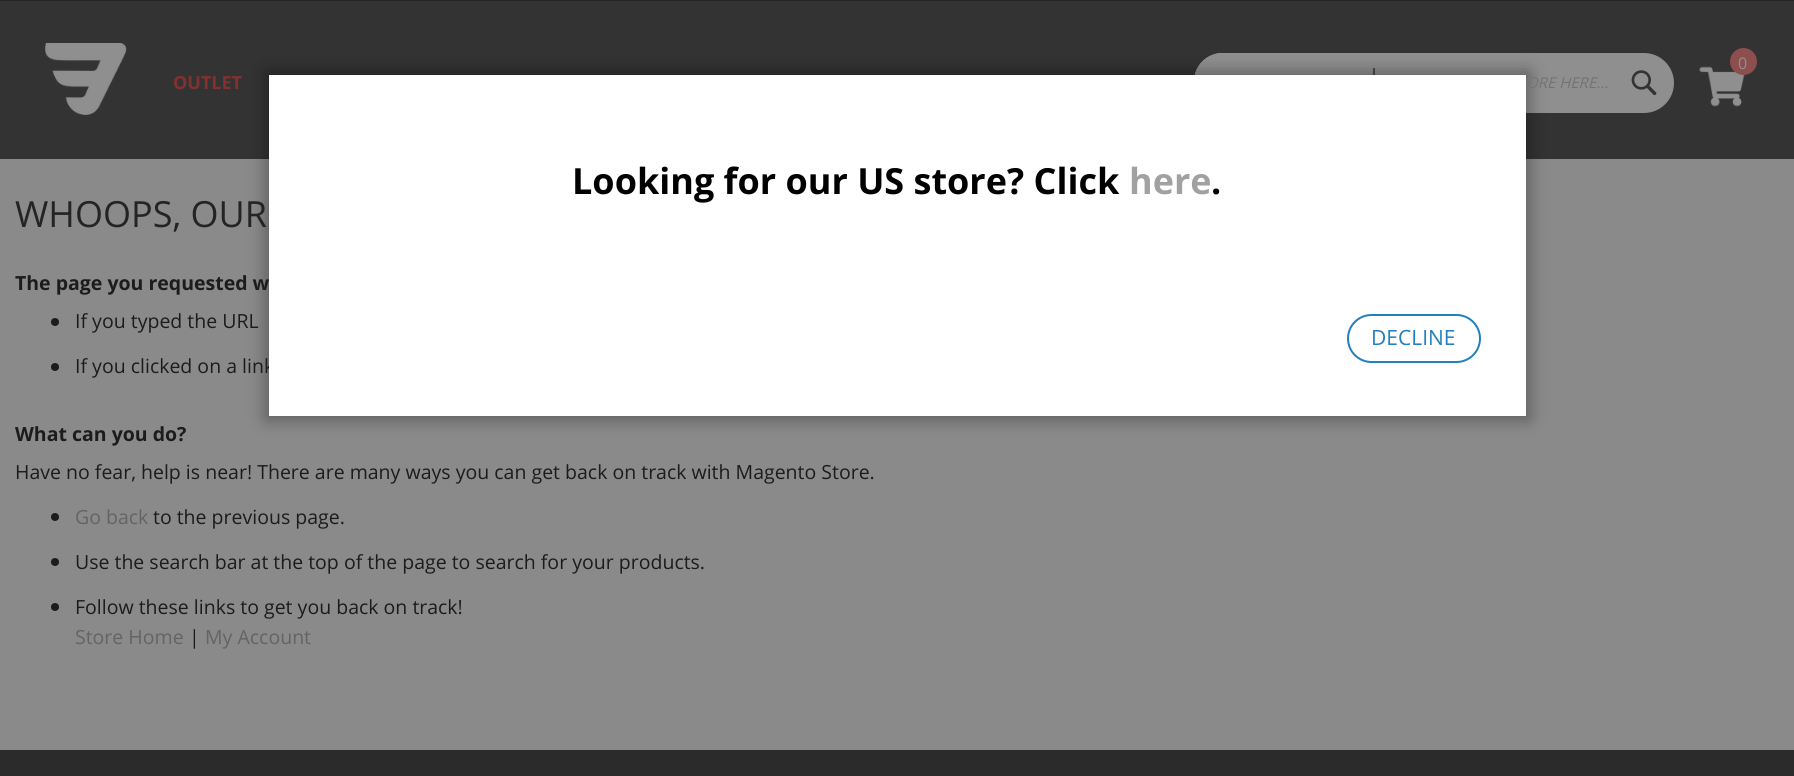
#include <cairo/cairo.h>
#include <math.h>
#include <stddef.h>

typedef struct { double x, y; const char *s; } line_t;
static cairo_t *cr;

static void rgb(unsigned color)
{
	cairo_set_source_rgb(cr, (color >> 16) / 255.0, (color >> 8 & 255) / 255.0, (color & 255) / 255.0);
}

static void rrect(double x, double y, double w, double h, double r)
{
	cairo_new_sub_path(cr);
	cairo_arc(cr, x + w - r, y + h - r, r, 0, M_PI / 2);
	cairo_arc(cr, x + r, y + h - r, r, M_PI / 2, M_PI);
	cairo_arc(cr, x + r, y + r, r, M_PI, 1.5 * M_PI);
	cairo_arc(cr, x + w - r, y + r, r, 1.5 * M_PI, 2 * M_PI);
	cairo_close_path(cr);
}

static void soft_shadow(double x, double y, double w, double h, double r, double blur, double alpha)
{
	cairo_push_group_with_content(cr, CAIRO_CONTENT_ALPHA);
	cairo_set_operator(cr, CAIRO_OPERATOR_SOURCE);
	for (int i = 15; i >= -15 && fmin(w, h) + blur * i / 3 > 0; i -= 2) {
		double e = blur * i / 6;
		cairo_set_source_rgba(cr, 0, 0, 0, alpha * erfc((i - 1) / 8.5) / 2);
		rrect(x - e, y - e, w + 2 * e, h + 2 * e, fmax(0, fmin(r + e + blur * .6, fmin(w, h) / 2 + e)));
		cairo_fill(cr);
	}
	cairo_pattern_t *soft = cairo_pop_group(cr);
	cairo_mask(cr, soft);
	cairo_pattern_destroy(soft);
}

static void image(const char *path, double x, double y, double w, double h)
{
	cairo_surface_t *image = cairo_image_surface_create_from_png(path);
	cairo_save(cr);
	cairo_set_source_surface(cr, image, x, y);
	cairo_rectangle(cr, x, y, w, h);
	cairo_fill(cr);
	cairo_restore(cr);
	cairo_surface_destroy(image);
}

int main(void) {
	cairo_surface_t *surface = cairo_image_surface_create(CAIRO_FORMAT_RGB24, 1794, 776);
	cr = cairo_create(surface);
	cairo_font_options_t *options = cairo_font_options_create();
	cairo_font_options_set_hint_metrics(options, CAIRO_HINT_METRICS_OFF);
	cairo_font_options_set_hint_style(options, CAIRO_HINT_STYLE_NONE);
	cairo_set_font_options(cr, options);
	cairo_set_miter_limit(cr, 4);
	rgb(0x8a8a8a);
	cairo_paint(cr);
	rgb(0x333333);
	cairo_rectangle(cr, 0, 1, 1794, 158);
	cairo_fill(cr);
	rgb(0x232323);
	cairo_rectangle(cr, 0, 0, 1794, 1);
	cairo_fill(cr);
	image("img/1.png", 45, 43, 82, 72);
	image("img/2.png", 1699, 66, 46, 41);
	rgb(0x8d4e4e);
	cairo_arc(cr, 1743.5, 61.5, 13.5, 0, 2 * M_PI);
	cairo_fill(cr);
	rgb(0x8f8f8f);
	rrect(1194, 53, 480, 60, 30);
	cairo_fill(cr);
	rrect(1194, 53, 195, 57, 28.5);
	cairo_fill(cr);
	rrect(1194, 53, 180, 57, 28.5);
	cairo_fill(cr);
	rgb(0x4a4a4a);
	cairo_rectangle(cr, 1373, 68, 2, 7);
	cairo_fill(cr);
	image("img/3.png", 1631, 70, 26, 26);
	rgb(0x1c1c1c);
	cairo_arc(cr, 55, 322, 4, 0, 2 * M_PI);
	cairo_fill(cr);
	cairo_arc(cr, 55, 367, 4, 0, 2 * M_PI);
	cairo_fill(cr);
	cairo_arc(cr, 55, 517, 4, 0, 2 * M_PI);
	cairo_fill(cr);
	cairo_arc(cr, 55, 562, 4, 0, 2 * M_PI);
	cairo_fill(cr);
	cairo_arc(cr, 55, 607, 4, 0, 2 * M_PI);
	cairo_fill(cr);
	rgb(0x2b2b2b);
	cairo_rectangle(cr, 0, 750, 1794, 26);
	cairo_fill(cr);
	rgb(0x000000);
	soft_shadow(266, 72, 1263, 347, 0, 9, 0.35);
	cairo_select_font_face(cr, "Open Sans", CAIRO_FONT_SLANT_NORMAL, CAIRO_FONT_WEIGHT_NORMAL);
	cairo_set_font_size(cr, 16);
	rgb(0x8f8f8f);
	cairo_move_to(cr, 1738, 69);
	cairo_show_text(cr, "0");
	cairo_select_font_face(cr, "Open Sans", CAIRO_FONT_SLANT_NORMAL, CAIRO_FONT_WEIGHT_BOLD);
	cairo_set_font_size(cr, 18);
	rgb(0x853030);
	cairo_move_to(cr, 173, 89);
	cairo_show_text(cr, "OUTLET");
	cairo_select_font_face(cr, "Open Sans", CAIRO_FONT_SLANT_ITALIC, CAIRO_FONT_WEIGHT_NORMAL);
	cairo_set_font_size(cr, 15);
	rgb(0x737373);
	cairo_move_to(cr, 1526, 88);
	cairo_show_text(cr, "ORE HERE...");
	cairo_select_font_face(cr, "Open Sans", CAIRO_FONT_SLANT_NORMAL, CAIRO_FONT_WEIGHT_NORMAL);
	cairo_set_font_size(cr, 36);
	rgb(0x242424);
	cairo_move_to(cr, 15, 227);
	cairo_show_text(cr, "WHOOPS, OUR");
	cairo_select_font_face(cr, "Open Sans", CAIRO_FONT_SLANT_NORMAL, CAIRO_FONT_WEIGHT_BOLD);
	cairo_set_font_size(cr, 19.5);
	rgb(0x1c1c1c);
	cairo_move_to(cr, 15, 290);
	cairo_show_text(cr, "The page you requested w");
	cairo_select_font_face(cr, "Open Sans", CAIRO_FONT_SLANT_NORMAL, CAIRO_FONT_WEIGHT_NORMAL);
	cairo_move_to(cr, 75, 328);
	cairo_show_text(cr, "If you typed the URL");
	cairo_move_to(cr, 75, 373);
	cairo_show_text(cr, "If you clicked on a link");
	cairo_select_font_face(cr, "Open Sans", CAIRO_FONT_SLANT_NORMAL, CAIRO_FONT_WEIGHT_BOLD);
	cairo_move_to(cr, 15, 441);
	cairo_show_text(cr, "What can you do?");
	cairo_select_font_face(cr, "Open Sans", CAIRO_FONT_SLANT_NORMAL, CAIRO_FONT_WEIGHT_NORMAL);
	cairo_move_to(cr, 15, 479);
	cairo_show_text(cr, "Have no fear, help is near! There are many ways you can get back on track with Magento Store.");
	rgb(0x646464);
	cairo_move_to(cr, 75, 524);
	cairo_show_text(cr, "Go back");
	rgb(0x1c1c1c);
	{
		static const line_t items[] = {
			{153, 524, "to the previous page."},
			{75, 569, "Use the search bar at the top of the page to search for your products."},
			{75, 614, "Follow these links to get you back on track!"},
		};
		for (size_t i = 0; i < sizeof items / sizeof *items; i++) {
			cairo_move_to(cr, items[i].x, items[i].y);
			cairo_show_text(cr, items[i].s);
		}
	}
	rgb(0x646464);
	cairo_move_to(cr, 75, 644);
	cairo_show_text(cr, "Store Home");
	rgb(0x1c1c1c);
	cairo_move_to(cr, 189, 644);
	cairo_show_text(cr, "|");
	rgb(0x646464);
	cairo_move_to(cr, 205, 644);
	cairo_show_text(cr, "My Account");
	rgb(0xffffff);
	cairo_rectangle(cr, 269, 75, 1257, 341);
	cairo_fill(cr);
	cairo_select_font_face(cr, "Open Sans", CAIRO_FONT_SLANT_NORMAL, CAIRO_FONT_WEIGHT_BOLD);
	cairo_set_font_size(cr, 36);
	rgb(0x000000);
	cairo_move_to(cr, 572, 194);
	cairo_show_text(cr, "Looking for our US store? Click");
	rgb(0xa1a1a1);
	cairo_move_to(cr, 1129, 194);
	cairo_show_text(cr, "here");
	rgb(0x000000);
	cairo_move_to(cr, 1211, 194);
	cairo_show_text(cr, ".");
	rrect(1348, 315, 132, 47, 23.5);
	rgb(0x2280be);
	cairo_stroke(cr);
	cairo_select_font_face(cr, "Open Sans", CAIRO_FONT_SLANT_NORMAL, CAIRO_FONT_WEIGHT_NORMAL);
	cairo_set_font_size(cr, 21);
	cairo_move_to(cr, 1371, 345);
	cairo_show_text(cr, "DECLINE");
	cairo_surface_write_to_png(surface, "page.png");
	cairo_font_options_destroy(options);
	cairo_destroy(cr);
	cairo_surface_destroy(surface);
	return 0;
}
